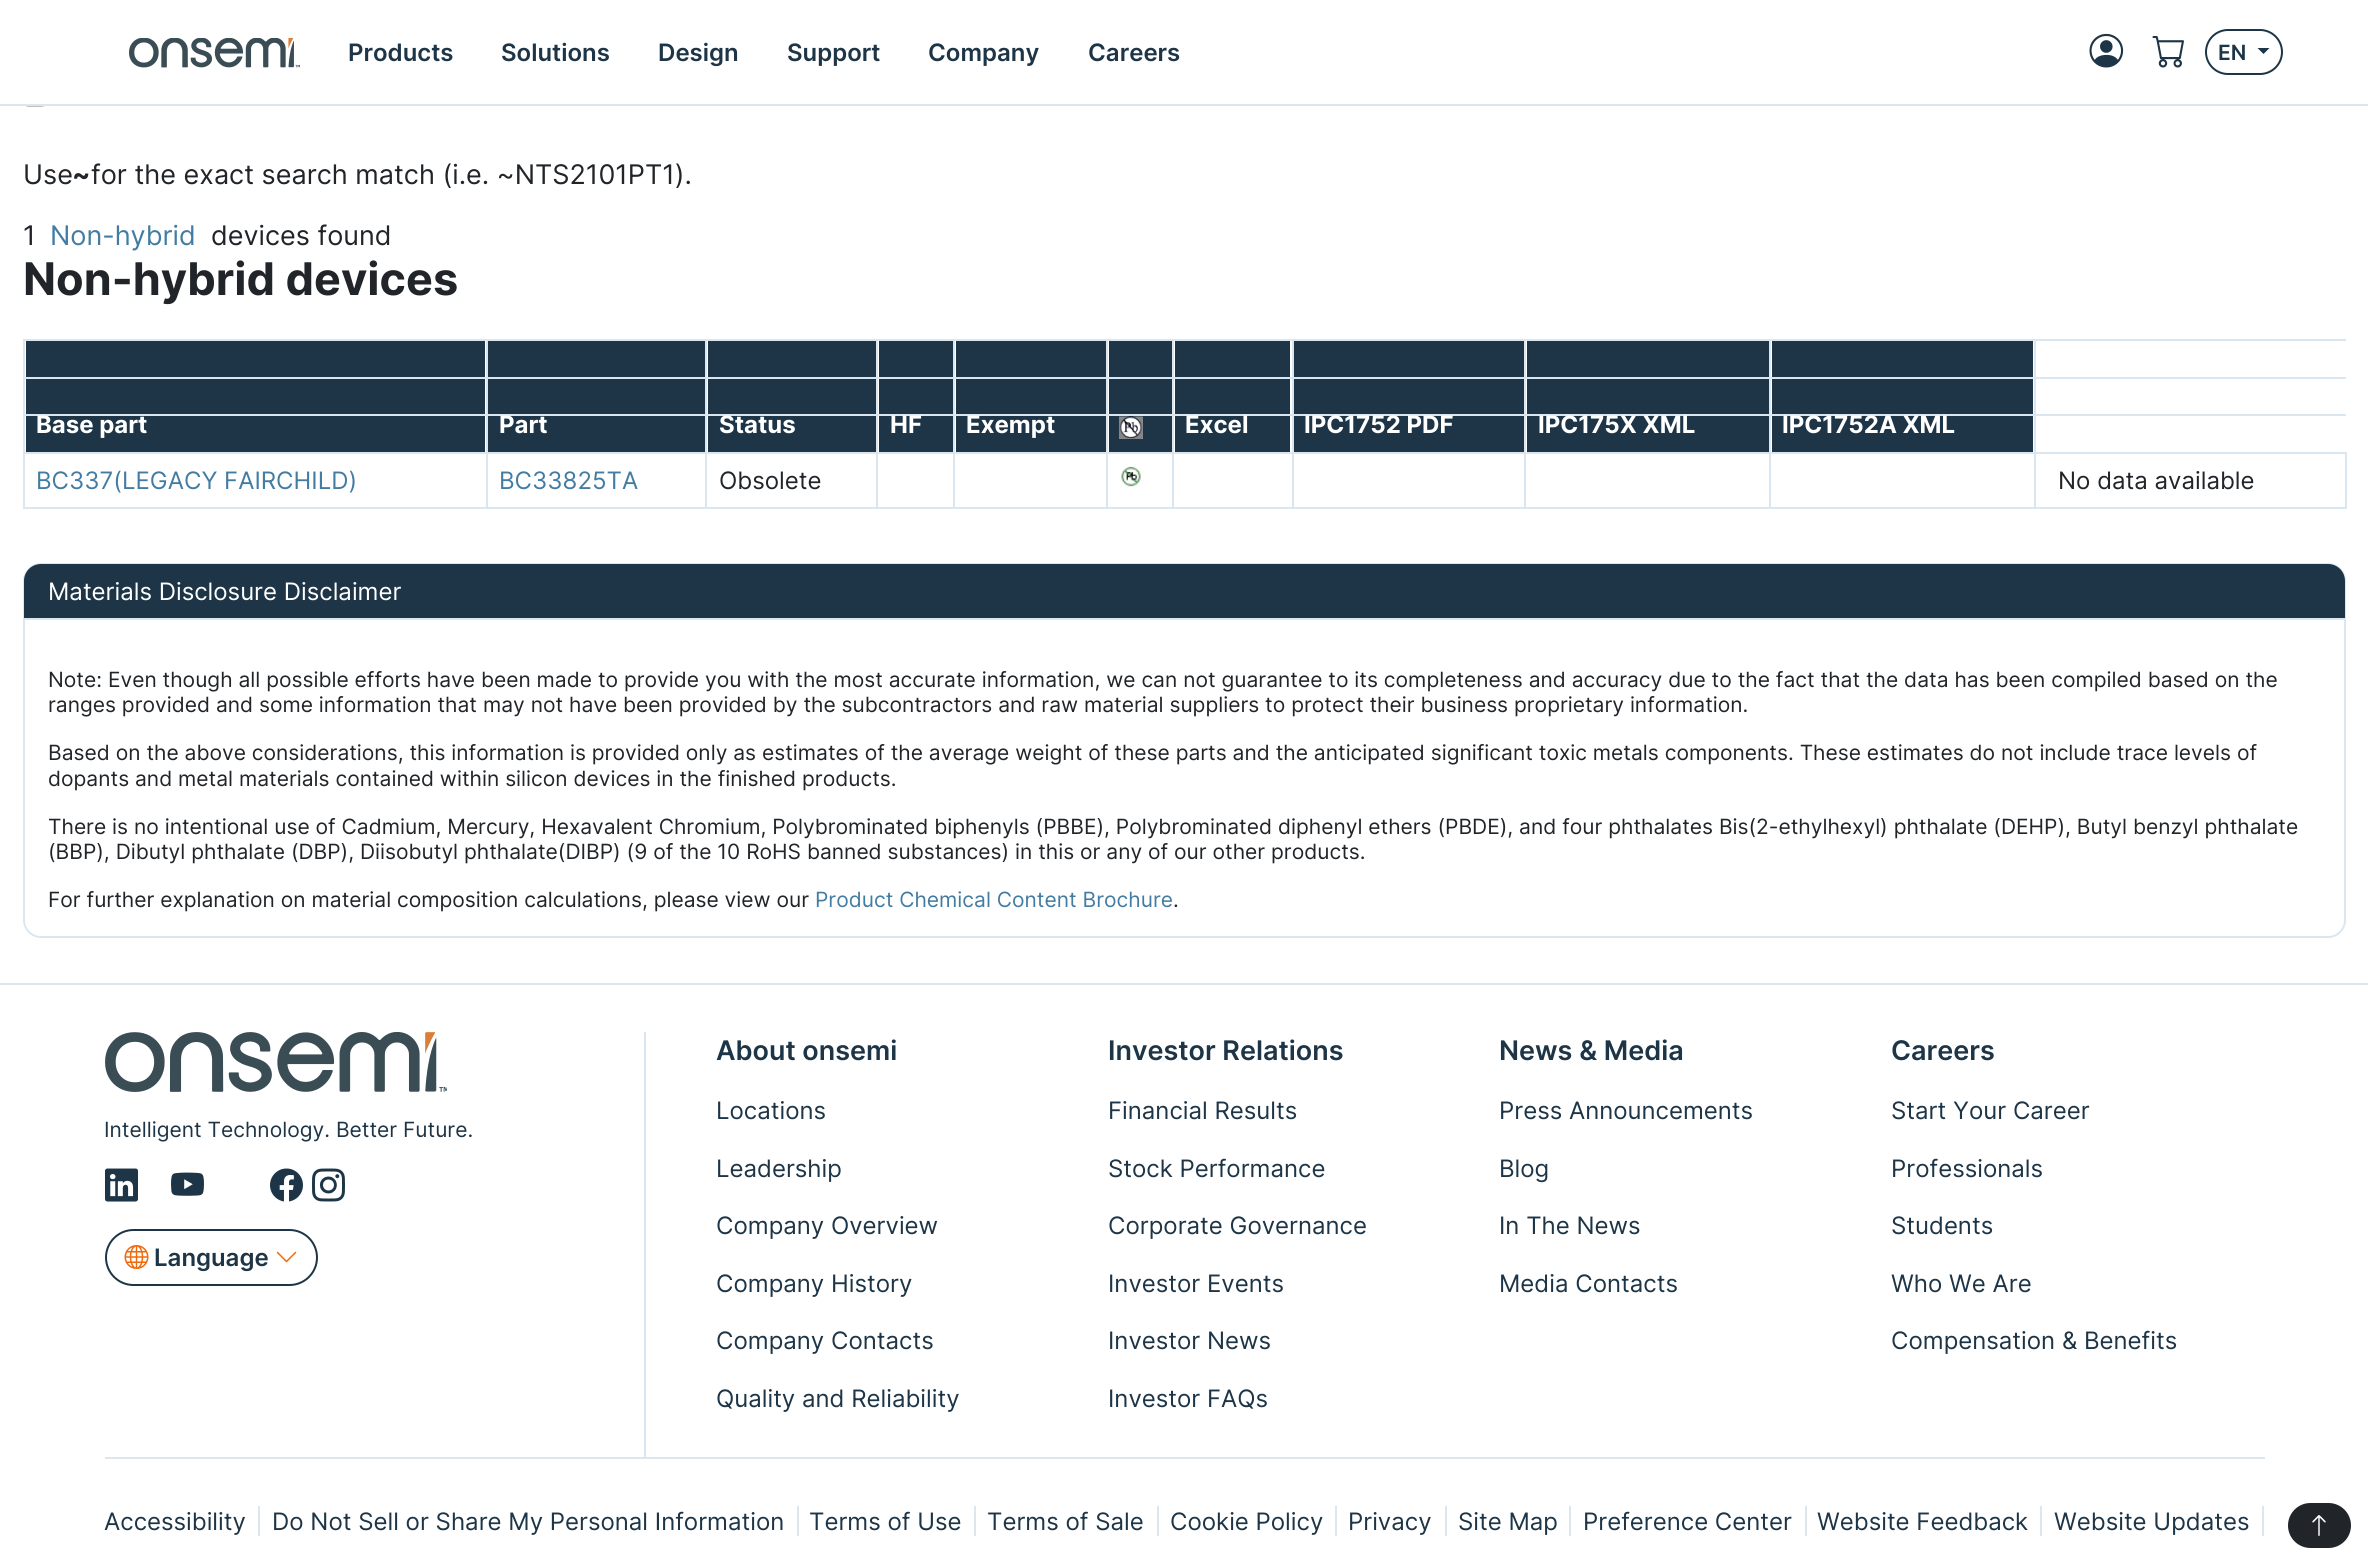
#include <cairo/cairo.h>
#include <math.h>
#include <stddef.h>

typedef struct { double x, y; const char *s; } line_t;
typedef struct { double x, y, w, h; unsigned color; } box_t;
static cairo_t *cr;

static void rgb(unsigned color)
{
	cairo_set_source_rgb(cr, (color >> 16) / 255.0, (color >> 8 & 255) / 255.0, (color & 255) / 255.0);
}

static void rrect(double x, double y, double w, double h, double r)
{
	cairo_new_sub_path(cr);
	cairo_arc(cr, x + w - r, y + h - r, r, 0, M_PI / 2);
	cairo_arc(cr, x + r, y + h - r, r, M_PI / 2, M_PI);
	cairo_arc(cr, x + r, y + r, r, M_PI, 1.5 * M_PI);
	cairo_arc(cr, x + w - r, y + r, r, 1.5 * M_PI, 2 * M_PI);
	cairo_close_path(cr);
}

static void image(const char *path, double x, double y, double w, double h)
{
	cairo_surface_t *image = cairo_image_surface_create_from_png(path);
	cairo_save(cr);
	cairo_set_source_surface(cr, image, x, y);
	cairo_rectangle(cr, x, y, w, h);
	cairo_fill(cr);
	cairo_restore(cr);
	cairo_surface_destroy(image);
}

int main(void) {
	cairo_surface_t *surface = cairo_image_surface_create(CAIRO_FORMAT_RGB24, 2368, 1565);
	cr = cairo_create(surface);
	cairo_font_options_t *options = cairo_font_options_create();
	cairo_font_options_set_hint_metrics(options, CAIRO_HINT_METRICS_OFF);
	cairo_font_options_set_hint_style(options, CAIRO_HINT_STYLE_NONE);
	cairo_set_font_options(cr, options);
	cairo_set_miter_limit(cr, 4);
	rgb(0xffffff);
	cairo_paint(cr);
	rrect(24, 84, 22, 22, 5);
	rgb(0xbfbfbf);
	cairo_stroke(cr);
	rgb(0xffffff);
	cairo_rectangle(cr, 23, 83, 24, 21);
	cairo_fill(cr);
	rgb(0xdbe7f0);
	cairo_rectangle(cr, 0, 104, 2368, 2);
	cairo_fill(cr);
	image("img/1.png", 129, 38, 171, 30);
	image("img/2.png", 2089, 33, 35, 35);
	image("img/3.png", 2152, 36, 32, 32);
	rrect(2206, 30, 76, 44, 22);
	rgb(0x1d3546);
	cairo_stroke(cr);
	cairo_new_path(cr);
	cairo_move_to(cr, 2257.5, 48);
	cairo_line_to(cr, 2269.5, 48);
	cairo_line_to(cr, 2263.5, 54);
	cairo_close_path(cr);
	cairo_fill(cr);
	{
		static const box_t items[] = {
			{26, 341, 459, 111, 0x1d3546},
			{488, 341, 217, 111, 0x1d3546},
			{708, 341, 168, 111, 0x1d3546},
			{879, 341, 74, 111, 0x1d3546},
			{956, 341, 150, 111, 0x1d3546},
			{1109, 341, 63, 111, 0x1d3546},
			{1175, 341, 115, 111, 0x1d3546},
			{1294, 341, 230, 111, 0x1d3546},
			{1527, 341, 242, 111, 0x1d3546},
			{1772, 341, 261, 111, 0x1d3546},
			{23, 377, 2323, 2, 0xdbe7f0},
			{23, 414, 2323, 2, 0xdbe7f0},
			{23, 339, 2323, 2, 0xdbe7f0},
		};
		for (size_t i = 0; i < sizeof items / sizeof *items; i++) {
			rgb(items[i].color);
			cairo_rectangle(cr, items[i].x, items[i].y, items[i].w, items[i].h);
			cairo_fill(cr);
		}
	}
	image("img/4.png", 1119, 416, 24, 23);
	{
		static const box_t items[] = {
			{23, 452, 2323, 2, 0xdbe7f0},
			{23, 507, 2323, 2, 0xdbe7f0},
			{23, 339, 2, 170, 0xdbe7f0},
			{486, 339, 2, 170, 0xdbe7f0},
			{705, 339, 2, 170, 0xdbe7f0},
			{876, 339, 2, 170, 0xdbe7f0},
			{953, 339, 2, 170, 0xdbe7f0},
			{1106, 339, 2, 170, 0xdbe7f0},
		};
		for (size_t i = 0; i < sizeof items / sizeof *items; i++) {
			rgb(items[i].color);
			cairo_rectangle(cr, items[i].x, items[i].y, items[i].w, items[i].h);
			cairo_fill(cr);
		}
	}
	image("img/5.png", 1121, 466, 20, 21);
	{
		static const box_t items[] = {
			{1172, 339, 2, 170, 0xdbe7f0},
			{1292, 339, 2, 170, 0xdbe7f0},
			{1524, 339, 2, 170, 0xdbe7f0},
			{1769, 339, 2, 170, 0xdbe7f0},
			{2345, 452, 2, 57, 0xdbe7f0},
			{2034, 339, 2, 170, 0xdbe7f0},
		};
		for (size_t i = 0; i < sizeof items / sizeof *items; i++) {
			rgb(items[i].color);
			cairo_rectangle(cr, items[i].x, items[i].y, items[i].w, items[i].h);
			cairo_fill(cr);
		}
	}
	rrect(24, 564, 2321, 373, 17);
	cairo_stroke(cr);
	rgb(0x1d3546);
	cairo_new_path(cr);
	cairo_move_to(cr, 41, 564);
	cairo_line_to(cr, 2328, 564);
	cairo_curve_to(cr, 2337.5, 564, 2345, 571.5, 2345, 581);
	cairo_line_to(cr, 2345, 620);
	cairo_line_to(cr, 24, 620);
	cairo_line_to(cr, 24, 581);
	cairo_curve_to(cr, 24, 571.5, 31.5, 564, 41, 564);
	cairo_close_path(cr);
	cairo_fill(cr);
	{
		static const box_t items[] = {
			{24, 618, 2321, 2, 0xdbe7f0},
			{0, 983, 2368, 2, 0xdbe7f0},
			{644, 1032, 2, 426, 0xdbe7f0},
			{105, 1457, 2160, 2, 0xdbe7f0},
		};
		for (size_t i = 0; i < sizeof items / sizeof *items; i++) {
			rgb(items[i].color);
			cairo_rectangle(cr, items[i].x, items[i].y, items[i].w, items[i].h);
			cairo_fill(cr);
		}
	}
	image("img/6.png", 105, 1032, 342, 60);
	image("img/7.png", 105, 1168, 33, 34);
	image("img/8.png", 171, 1172, 33, 24);
	image("img/9.png", 270, 1168, 33, 34);
	image("img/10.png", 312, 1168, 33, 34);
	rrect(106, 1230, 211, 55, 27.5);
	rgb(0x1d3546);
	cairo_stroke(cr);
	image("img/11.png", 124, 1245, 25, 24);
	image("img/12.png", 276, 1251, 21, 12);
	{
		static const box_t items[] = {
			{258, 1506, 2, 30, 0xdbe7f0},
			{797, 1506, 2, 30, 0xdbe7f0},
			{974, 1506, 2, 30, 0xdbe7f0},
			{1157, 1506, 2, 30, 0xdbe7f0},
			{1335, 1506, 2, 30, 0xdbe7f0},
			{1445, 1506, 2, 30, 0xdbe7f0},
			{1569, 1506, 2, 30, 0xdbe7f0},
			{1805, 1506, 2, 30, 0xdbe7f0},
			{2040, 1506, 2, 30, 0xdbe7f0},
			{2262, 1506, 2, 30, 0xdbe7f0},
		};
		for (size_t i = 0; i < sizeof items / sizeof *items; i++) {
			rgb(items[i].color);
			cairo_rectangle(cr, items[i].x, items[i].y, items[i].w, items[i].h);
			cairo_fill(cr);
		}
	}
	rgb(0x212529);
	rrect(2289, 1504, 61, 43, 21.5);
	cairo_fill_preserve(cr);
	cairo_stroke(cr);
	image("img/13.png", 2312, 1515, 14, 21);
	cairo_select_font_face(cr, "Inter SemiBold", CAIRO_FONT_SLANT_NORMAL, CAIRO_FONT_WEIGHT_NORMAL);
	cairo_set_font_size(cr, 24);
	rgb(0x1d3546);
	{
		static const line_t items[] = {
			{348, 61, "Products"},
			{501, 61, "Solutions"},
			{658, 61, "Design"},
			{787, 61, "Support"},
			{928, 61, "Company"},
			{1088, 61, "Careers"},
		};
		for (size_t i = 0; i < sizeof items / sizeof *items; i++) {
			cairo_move_to(cr, items[i].x, items[i].y);
			cairo_show_text(cr, items[i].s);
		}
	}
	cairo_set_font_size(cr, 21);
	cairo_move_to(cr, 2218, 60);
	cairo_show_text(cr, "EN");
	cairo_select_font_face(cr, "Inter", CAIRO_FONT_SLANT_NORMAL, CAIRO_FONT_WEIGHT_NORMAL);
	cairo_set_font_size(cr, 27);
	rgb(0x212529);
	cairo_move_to(cr, 23, 184);
	cairo_show_text(cr, "Use");
	cairo_select_font_face(cr, "Inter", CAIRO_FONT_SLANT_NORMAL, CAIRO_FONT_WEIGHT_BOLD);
	cairo_move_to(cr, 72, 184);
	cairo_show_text(cr, "~");
	cairo_select_font_face(cr, "Inter", CAIRO_FONT_SLANT_NORMAL, CAIRO_FONT_WEIGHT_NORMAL);
	cairo_move_to(cr, 91, 184);
	cairo_show_text(cr, "for the exact search match (i.e. ~NTS2101PT1).");
	cairo_move_to(cr, 23, 245);
	cairo_show_text(cr, "1");
	rgb(0x437ca3);
	cairo_move_to(cr, 50, 245);
	cairo_show_text(cr, "Non-hybrid");
	rgb(0x212529);
	cairo_move_to(cr, 211, 245);
	cairo_show_text(cr, "devices found");
	cairo_select_font_face(cr, "Inter", CAIRO_FONT_SLANT_NORMAL, CAIRO_FONT_WEIGHT_BOLD);
	cairo_set_font_size(cr, 45);
	cairo_move_to(cr, 23, 295);
	cairo_show_text(cr, "Non-hybrid devices");
	cairo_set_font_size(cr, 24);
	rgb(0xffffff);
	{
		static const line_t items[] = {
			{36, 433, "Base part"},
			{499, 433, "Part"},
			{719, 433, "Status"},
			{890, 433, "HF"},
			{966, 433, "Exempt"},
			{1185, 433, "Excel"},
			{1304, 433, "IPC1752 PDF"},
			{1538, 433, "IPC175X XML"},
			{1782, 433, "IPC1752A XML"},
		};
		for (size_t i = 0; i < sizeof items / sizeof *items; i++) {
			cairo_move_to(cr, items[i].x, items[i].y);
			cairo_show_text(cr, items[i].s);
		}
	}
	cairo_select_font_face(cr, "Inter", CAIRO_FONT_SLANT_NORMAL, CAIRO_FONT_WEIGHT_NORMAL);
	rgb(0x437ca3);
	cairo_move_to(cr, 36, 489);
	cairo_show_text(cr, "BC337(LEGACY FAIRCHILD)");
	cairo_move_to(cr, 499, 489);
	cairo_show_text(cr, "BC33825TA");
	rgb(0x212529);
	cairo_move_to(cr, 719, 489);
	cairo_show_text(cr, "Obsolete");
	cairo_move_to(cr, 2058, 489);
	cairo_show_text(cr, "No data available");
	rgb(0xffffff);
	cairo_move_to(cr, 48, 600);
	cairo_show_text(cr, "Materials Disclosure Disclaimer");
	cairo_set_font_size(cr, 21);
	rgb(0x212529);
	{
		static const line_t items[] = {
			{48, 687, "Note: Even though all possible efforts have been made to provide you with the most accurate information, we can not guarantee to its completeness and accuracy due to the fact that the data has been compiled based on the"},
			{48, 712, "ranges provided and some information that may not have been provided by the subcontractors and raw material suppliers to protect their business proprietary information."},
			{48, 760, "Based on the above considerations, this information is provided only as estimates of the average weight of these parts and the anticipated significant toxic metals components. These estimates do not include trace levels of"},
			{48, 786, "dopants and metal materials contained within silicon devices in the finished products."},
			{48, 834, "There is no intentional use of Cadmium, Mercury, Hexavalent Chromium, Polybrominated biphenyls (PBBE), Polybrominated diphenyl ethers (PBDE), and four phthalates Bis(2-ethylhexyl) phthalate (DEHP), Butyl benzyl phthalate"},
			{48, 859, "(BBP), Dibutyl phthalate (DBP), Diisobutyl phthalate(DIBP) (9 of the 10 RoHS banned substances) in this or any of our other products."},
			{48, 907, "For further explanation on material composition calculations, please view our"},
		};
		for (size_t i = 0; i < sizeof items / sizeof *items; i++) {
			cairo_move_to(cr, items[i].x, items[i].y);
			cairo_show_text(cr, items[i].s);
		}
	}
	rgb(0x437ca3);
	cairo_move_to(cr, 815, 907);
	cairo_show_text(cr, "Product Chemical Content Brochure");
	rgb(0x212529);
	cairo_move_to(cr, 1173, 907);
	cairo_show_text(cr, ".");
	rgb(0x1d3546);
	cairo_move_to(cr, 104, 1137);
	cairo_show_text(cr, "Intelligent Technology. Better Future.");
	cairo_select_font_face(cr, "Inter SemiBold", CAIRO_FONT_SLANT_NORMAL, CAIRO_FONT_WEIGHT_NORMAL);
	cairo_set_font_size(cr, 24);
	cairo_move_to(cr, 154, 1266);
	cairo_show_text(cr, "Language");
	cairo_set_font_size(cr, 27);
	cairo_move_to(cr, 716, 1060);
	cairo_show_text(cr, "About onsemi");
	cairo_select_font_face(cr, "Inter", CAIRO_FONT_SLANT_NORMAL, CAIRO_FONT_WEIGHT_NORMAL);
	cairo_set_font_size(cr, 24);
	{
		static const line_t items[] = {
			{716, 1119, "Locations"},
			{716, 1177, "Leadership"},
			{716, 1234, "Company Overview"},
			{716, 1292, "Company History"},
			{716, 1349, "Company Contacts"},
			{716, 1407, "Quality and Reliability"},
		};
		for (size_t i = 0; i < sizeof items / sizeof *items; i++) {
			cairo_move_to(cr, items[i].x, items[i].y);
			cairo_show_text(cr, items[i].s);
		}
	}
	cairo_select_font_face(cr, "Inter SemiBold", CAIRO_FONT_SLANT_NORMAL, CAIRO_FONT_WEIGHT_NORMAL);
	cairo_set_font_size(cr, 27);
	cairo_move_to(cr, 1108, 1060);
	cairo_show_text(cr, "Investor Relations");
	cairo_select_font_face(cr, "Inter", CAIRO_FONT_SLANT_NORMAL, CAIRO_FONT_WEIGHT_NORMAL);
	cairo_set_font_size(cr, 24);
	{
		static const line_t items[] = {
			{1108, 1119, "Financial Results"},
			{1108, 1177, "Stock Performance"},
			{1108, 1234, "Corporate Governance"},
			{1108, 1292, "Investor Events"},
			{1108, 1349, "Investor News"},
			{1108, 1407, "Investor FAQs"},
		};
		for (size_t i = 0; i < sizeof items / sizeof *items; i++) {
			cairo_move_to(cr, items[i].x, items[i].y);
			cairo_show_text(cr, items[i].s);
		}
	}
	cairo_select_font_face(cr, "Inter SemiBold", CAIRO_FONT_SLANT_NORMAL, CAIRO_FONT_WEIGHT_NORMAL);
	cairo_set_font_size(cr, 27);
	cairo_move_to(cr, 1499, 1060);
	cairo_show_text(cr, "News & Media");
	cairo_select_font_face(cr, "Inter", CAIRO_FONT_SLANT_NORMAL, CAIRO_FONT_WEIGHT_NORMAL);
	cairo_set_font_size(cr, 24);
	{
		static const line_t items[] = {
			{1499, 1119, "Press Announcements"},
			{1499, 1177, "Blog"},
			{1499, 1234, "In The News"},
			{1499, 1292, "Media Contacts"},
		};
		for (size_t i = 0; i < sizeof items / sizeof *items; i++) {
			cairo_move_to(cr, items[i].x, items[i].y);
			cairo_show_text(cr, items[i].s);
		}
	}
	cairo_select_font_face(cr, "Inter SemiBold", CAIRO_FONT_SLANT_NORMAL, CAIRO_FONT_WEIGHT_NORMAL);
	cairo_set_font_size(cr, 27);
	cairo_move_to(cr, 1891, 1060);
	cairo_show_text(cr, "Careers");
	cairo_select_font_face(cr, "Inter", CAIRO_FONT_SLANT_NORMAL, CAIRO_FONT_WEIGHT_NORMAL);
	cairo_set_font_size(cr, 24);
	{
		static const line_t items[] = {
			{1891, 1119, "Start Your Career"},
			{1891, 1177, "Professionals"},
			{1891, 1234, "Students"},
			{1891, 1292, "Who We Are"},
			{1891, 1349, "Compensation & Benefits"},
			{104, 1530, "Accessibility"},
			{272, 1530, "Do Not Sell or Share My Personal Information"},
			{809, 1530, "Terms of Use"},
			{987, 1530, "Terms of Sale"},
			{1170, 1530, "Cookie Policy"},
			{1348, 1530, "Privacy"},
			{1458, 1530, "Site Map"},
			{1583, 1530, "Preference Center"},
			{1817, 1530, "Website Feedback"},
			{2054, 1530, "Website Updates"},
		};
		for (size_t i = 0; i < sizeof items / sizeof *items; i++) {
			cairo_move_to(cr, items[i].x, items[i].y);
			cairo_show_text(cr, items[i].s);
		}
	}
	cairo_surface_write_to_png(surface, "page.png");
	cairo_font_options_destroy(options);
	cairo_destroy(cr);
	cairo_surface_destroy(surface);
	return 0;
}
